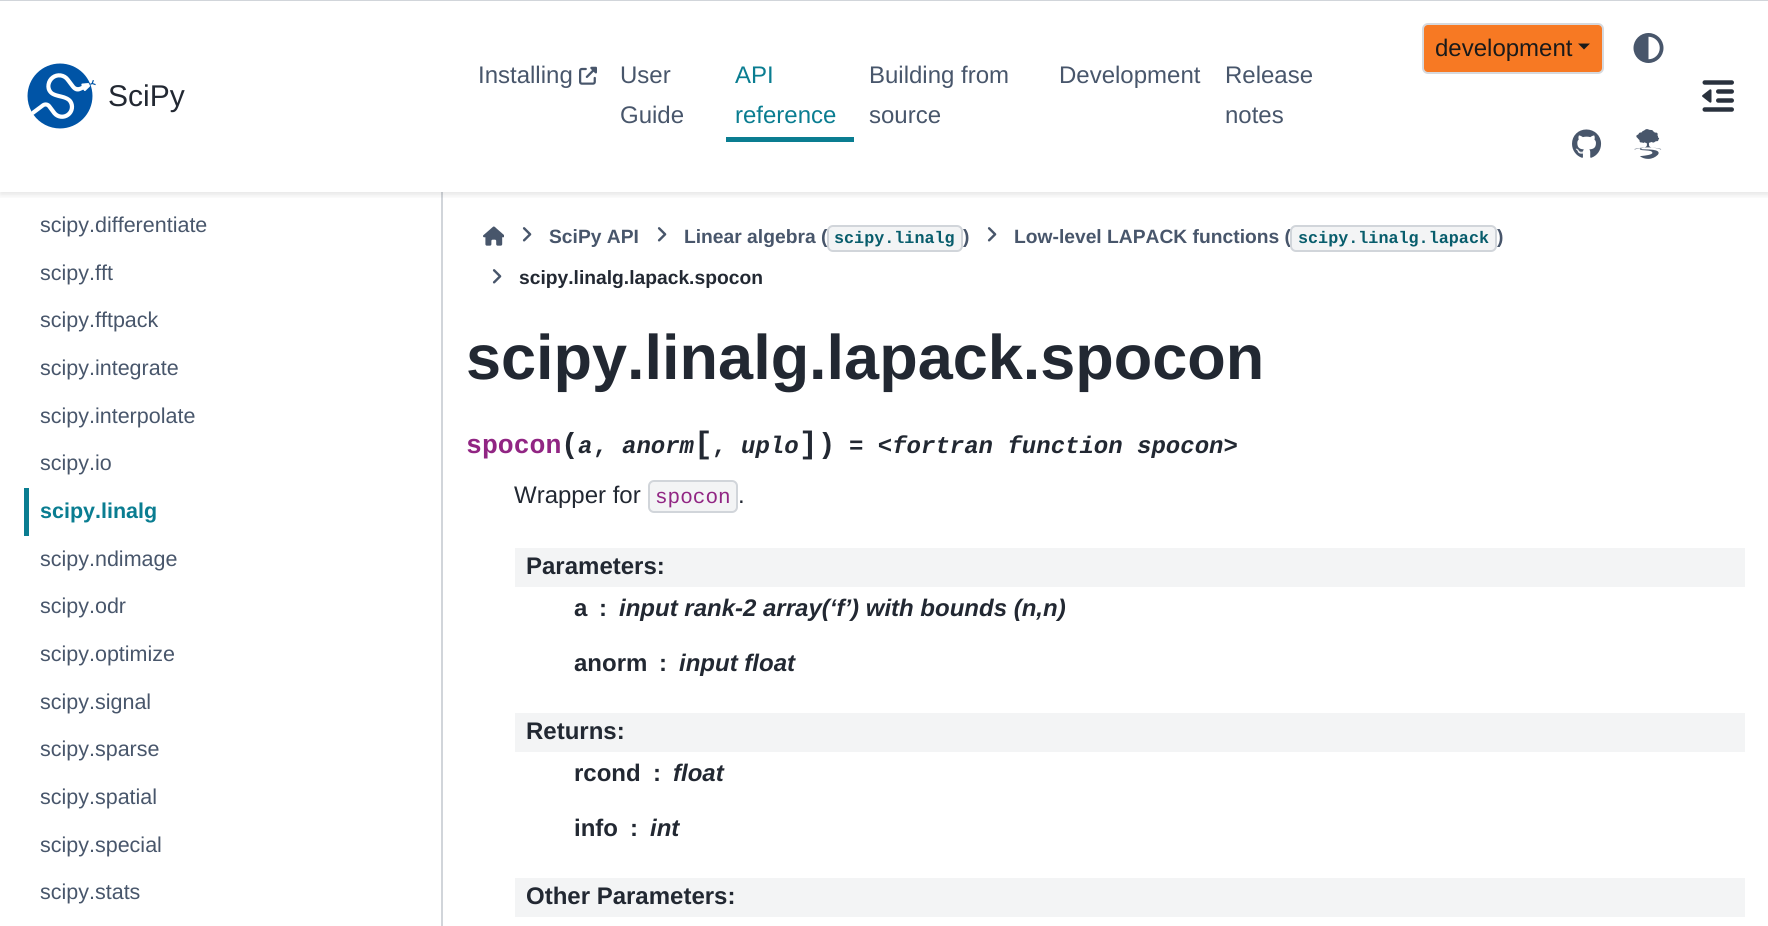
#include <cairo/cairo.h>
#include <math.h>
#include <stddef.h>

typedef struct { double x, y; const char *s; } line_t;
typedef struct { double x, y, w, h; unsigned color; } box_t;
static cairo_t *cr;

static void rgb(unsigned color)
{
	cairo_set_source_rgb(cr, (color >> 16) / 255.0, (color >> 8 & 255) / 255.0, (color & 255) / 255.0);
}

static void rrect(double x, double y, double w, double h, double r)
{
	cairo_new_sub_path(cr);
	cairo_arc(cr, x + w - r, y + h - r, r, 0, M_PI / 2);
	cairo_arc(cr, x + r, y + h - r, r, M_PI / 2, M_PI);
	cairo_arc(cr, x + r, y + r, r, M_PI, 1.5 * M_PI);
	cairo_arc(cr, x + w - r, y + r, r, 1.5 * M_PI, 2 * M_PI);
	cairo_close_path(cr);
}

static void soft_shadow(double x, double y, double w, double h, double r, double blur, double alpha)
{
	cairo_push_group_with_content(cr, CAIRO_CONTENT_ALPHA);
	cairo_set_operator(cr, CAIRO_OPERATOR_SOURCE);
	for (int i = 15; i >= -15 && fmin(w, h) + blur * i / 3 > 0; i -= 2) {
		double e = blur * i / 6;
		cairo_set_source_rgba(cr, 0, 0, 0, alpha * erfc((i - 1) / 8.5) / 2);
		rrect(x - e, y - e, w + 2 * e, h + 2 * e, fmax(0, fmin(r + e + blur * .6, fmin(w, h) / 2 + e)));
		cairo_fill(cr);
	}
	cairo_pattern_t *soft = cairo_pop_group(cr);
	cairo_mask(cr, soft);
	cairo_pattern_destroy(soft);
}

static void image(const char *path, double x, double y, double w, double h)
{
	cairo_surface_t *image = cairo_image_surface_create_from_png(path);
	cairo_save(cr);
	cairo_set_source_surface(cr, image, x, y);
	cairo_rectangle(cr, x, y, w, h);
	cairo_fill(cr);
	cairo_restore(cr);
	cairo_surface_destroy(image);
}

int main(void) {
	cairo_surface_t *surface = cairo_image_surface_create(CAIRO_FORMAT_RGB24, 1768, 926);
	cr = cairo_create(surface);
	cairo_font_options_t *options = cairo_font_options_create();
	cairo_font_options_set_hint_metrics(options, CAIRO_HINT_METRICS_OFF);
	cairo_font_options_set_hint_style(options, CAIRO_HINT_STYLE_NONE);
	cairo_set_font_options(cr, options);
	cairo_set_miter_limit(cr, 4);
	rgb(0xffffff);
	cairo_paint(cr);
	rgb(0xd1d5da);
	cairo_rectangle(cr, 441, 192, 2, 734);
	cairo_fill(cr);
	cairo_save(cr);
	cairo_rectangle(cr, 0, 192, 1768, 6);
	cairo_clip(cr);
	rgb(0x000000);
	soft_shadow(0, 3, 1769, 192, 0, 3, 0.1);
	cairo_restore(cr);
	cairo_rectangle(cr, 0, 0, 1768, 1);
	cairo_fill(cr);
	image("img/1.png", 27, 63, 69, 66);
	rgb(0xf77923);
	rrect(1423, 24, 180, 49, 5);
	cairo_fill_preserve(cr);
	rgb(0xd6d9de);
	cairo_stroke(cr);
	rgb(0x1a1a1a);
	cairo_new_path(cr);
	cairo_move_to(cr, 1578, 43.5);
	cairo_line_to(cr, 1590, 43.5);
	cairo_line_to(cr, 1584, 49.5);
	cairo_close_path(cr);
	cairo_fill(cr);
	image("img/2.png", 1633, 33, 31, 30);
	image("img/3.png", 1572, 129, 30, 29);
	image("img/4.png", 1634, 129, 28, 30);
	image("img/5.png", 579, 66, 18, 19);
	rgb(0x0a7d91);
	cairo_rectangle(cr, 726, 137, 128, 5);
	cairo_fill(cr);
	image("img/6.png", 1702, 80, 32, 32);
	cairo_rectangle(cr, 24, 488, 5, 48);
	cairo_fill(cr);
	image("img/7.png", 483, 226, 21, 20);
	image("img/8.png", 522, 227, 10, 15);
	image("img/8.png", 657, 227, 10, 15);
	rgb(0xf3f4f5);
	rrect(828, 226, 134, 25, 5);
	cairo_fill_preserve(cr);
	rgb(0xd1d5da);
	cairo_stroke(cr);
	image("img/8.png", 987, 227, 10, 15);
	image("img/8.png", 492, 269, 10, 15);
	rgb(0xf3f4f5);
	rrect(649, 481, 88, 31, 5);
	cairo_fill_preserve(cr);
	rgb(0xd1d5da);
	cairo_stroke(cr);
	{
		static const box_t items[] = {
			{515, 548, 1230, 39, 0xf3f4f5},
			{515, 713, 1230, 39, 0xf3f4f5},
			{515, 878, 1230, 39, 0xf3f4f5},
		};
		for (size_t i = 0; i < sizeof items / sizeof *items; i++) {
			rgb(items[i].color);
			cairo_rectangle(cr, items[i].x, items[i].y, items[i].w, items[i].h);
			cairo_fill(cr);
		}
	}
	cairo_select_font_face(cr, "Liberation Sans", CAIRO_FONT_SLANT_NORMAL, CAIRO_FONT_WEIGHT_NORMAL);
	cairo_set_font_size(cr, 30);
	rgb(0x222832);
	cairo_move_to(cr, 108, 106);
	cairo_show_text(cr, "SciPy");
	cairo_set_font_size(cr, 24);
	rgb(0x1a1a1a);
	cairo_move_to(cr, 1435, 56);
	cairo_show_text(cr, "development");
	rgb(0x48566b);
	{
		static const line_t items[] = {
			{478, 83, "Installing"},
			{620, 83, "User"},
			{620, 123, "Guide"},
		};
		for (size_t i = 0; i < sizeof items / sizeof *items; i++) {
			cairo_move_to(cr, items[i].x, items[i].y);
			cairo_show_text(cr, items[i].s);
		}
	}
	rgb(0x0a7d91);
	cairo_move_to(cr, 735, 83);
	cairo_show_text(cr, "API");
	cairo_move_to(cr, 735, 123);
	cairo_show_text(cr, "reference");
	rgb(0x48566b);
	{
		static const line_t items[] = {
			{869, 83, "Building from"},
			{869, 123, "source"},
			{1059, 83, "Development"},
			{1225, 83, "Release"},
			{1225, 123, "notes"},
		};
		for (size_t i = 0; i < sizeof items / sizeof *items; i++) {
			cairo_move_to(cr, items[i].x, items[i].y);
			cairo_show_text(cr, items[i].s);
		}
	}
	cairo_set_font_size(cr, 21.5);
	{
		static const line_t items[] = {
			{40, 232, "scipy.differentiate"},
			{40, 280, "scipy.fft"},
			{40, 327, "scipy.fftpack"},
			{40, 375, "scipy.integrate"},
			{40, 423, "scipy.interpolate"},
			{40, 470, "scipy.io"},
		};
		for (size_t i = 0; i < sizeof items / sizeof *items; i++) {
			cairo_move_to(cr, items[i].x, items[i].y);
			cairo_show_text(cr, items[i].s);
		}
	}
	cairo_select_font_face(cr, "Liberation Sans", CAIRO_FONT_SLANT_NORMAL, CAIRO_FONT_WEIGHT_BOLD);
	rgb(0x0a7d91);
	cairo_move_to(cr, 40, 518);
	cairo_show_text(cr, "scipy.linalg");
	cairo_select_font_face(cr, "Liberation Sans", CAIRO_FONT_SLANT_NORMAL, CAIRO_FONT_WEIGHT_NORMAL);
	rgb(0x48566b);
	{
		static const line_t items[] = {
			{40, 566, "scipy.ndimage"},
			{40, 613, "scipy.odr"},
			{40, 661, "scipy.optimize"},
			{40, 709, "scipy.signal"},
			{40, 756, "scipy.sparse"},
			{40, 804, "scipy.spatial"},
			{40, 852, "scipy.special"},
			{40, 899, "scipy.stats"},
		};
		for (size_t i = 0; i < sizeof items / sizeof *items; i++) {
			cairo_move_to(cr, items[i].x, items[i].y);
			cairo_show_text(cr, items[i].s);
		}
	}
	cairo_select_font_face(cr, "Liberation Sans", CAIRO_FONT_SLANT_NORMAL, CAIRO_FONT_WEIGHT_BOLD);
	cairo_set_font_size(cr, 19.25);
	cairo_move_to(cr, 549, 243);
	cairo_show_text(cr, "SciPy API");
	cairo_move_to(cr, 684, 243);
	cairo_show_text(cr, "Linear algebra (");
	cairo_select_font_face(cr, "Liberation Mono", CAIRO_FONT_SLANT_NORMAL, CAIRO_FONT_WEIGHT_BOLD);
	cairo_set_font_size(cr, 16.75);
	rgb(0x085d6c);
	cairo_move_to(cr, 834, 243);
	cairo_show_text(cr, "scipy.linalg");
	cairo_select_font_face(cr, "Liberation Sans", CAIRO_FONT_SLANT_NORMAL, CAIRO_FONT_WEIGHT_BOLD);
	cairo_set_font_size(cr, 19.25);
	rgb(0x48566b);
	cairo_move_to(cr, 963, 243);
	cairo_show_text(cr, ")");
	cairo_move_to(cr, 1014, 243);
	cairo_show_text(cr, "Low-level LAPACK functions (");
	rgb(0xf3f4f5);
	rrect(1291, 226, 205, 25, 5);
	cairo_fill_preserve(cr);
	rgb(0xd1d5da);
	cairo_stroke(cr);
	cairo_select_font_face(cr, "Liberation Mono", CAIRO_FONT_SLANT_NORMAL, CAIRO_FONT_WEIGHT_BOLD);
	cairo_set_font_size(cr, 16.75);
	rgb(0x085d6c);
	cairo_move_to(cr, 1298, 243);
	cairo_show_text(cr, "scipy.linalg.lapack");
	cairo_select_font_face(cr, "Liberation Sans", CAIRO_FONT_SLANT_NORMAL, CAIRO_FONT_WEIGHT_BOLD);
	cairo_set_font_size(cr, 19.25);
	rgb(0x48566b);
	cairo_move_to(cr, 1497, 243);
	cairo_show_text(cr, ")");
	rgb(0x222832);
	cairo_move_to(cr, 519, 284);
	cairo_show_text(cr, "scipy.linalg.lapack.spocon");
	cairo_set_font_size(cr, 63);
	cairo_move_to(cr, 466, 379);
	cairo_show_text(cr, "scipy.linalg.lapack.spocon");
	cairo_select_font_face(cr, "Liberation Mono", CAIRO_FONT_SLANT_NORMAL, CAIRO_FONT_WEIGHT_BOLD);
	cairo_set_font_size(cr, 26.5);
	rgb(0x912583);
	cairo_move_to(cr, 466, 453);
	cairo_show_text(cr, "spocon");
	cairo_set_font_size(cr, 29);
	rgb(0x222832);
	cairo_move_to(cr, 561, 453);
	cairo_show_text(cr, "(");
	cairo_select_font_face(cr, "Liberation Mono", CAIRO_FONT_SLANT_ITALIC, CAIRO_FONT_WEIGHT_BOLD);
	cairo_set_font_size(cr, 24);
	cairo_move_to(cr, 578, 453);
	cairo_show_text(cr, "a");
	cairo_select_font_face(cr, "Liberation Mono", CAIRO_FONT_SLANT_NORMAL, CAIRO_FONT_WEIGHT_BOLD);
	cairo_move_to(cr, 593, 453);
	cairo_show_text(cr, ",");
	cairo_select_font_face(cr, "Liberation Mono", CAIRO_FONT_SLANT_ITALIC, CAIRO_FONT_WEIGHT_BOLD);
	cairo_move_to(cr, 622, 453);
	cairo_show_text(cr, "anorm");
	cairo_select_font_face(cr, "Liberation Mono", CAIRO_FONT_SLANT_NORMAL, CAIRO_FONT_WEIGHT_BOLD);
	cairo_set_font_size(cr, 31);
	cairo_move_to(cr, 694, 453);
	cairo_show_text(cr, "[");
	cairo_set_font_size(cr, 24);
	cairo_move_to(cr, 712, 453);
	cairo_show_text(cr, ",");
	cairo_select_font_face(cr, "Liberation Mono", CAIRO_FONT_SLANT_ITALIC, CAIRO_FONT_WEIGHT_BOLD);
	cairo_move_to(cr, 741, 453);
	cairo_show_text(cr, "uplo");
	cairo_select_font_face(cr, "Liberation Mono", CAIRO_FONT_SLANT_NORMAL, CAIRO_FONT_WEIGHT_BOLD);
	cairo_set_font_size(cr, 31);
	cairo_move_to(cr, 799, 453);
	cairo_show_text(cr, "]");
	cairo_set_font_size(cr, 29);
	cairo_move_to(cr, 818, 453);
	cairo_show_text(cr, ")");
	cairo_select_font_face(cr, "Liberation Mono", CAIRO_FONT_SLANT_ITALIC, CAIRO_FONT_WEIGHT_BOLD);
	cairo_set_font_size(cr, 24);
	cairo_move_to(cr, 849, 453);
	cairo_show_text(cr, "= <fortran function spocon>");
	cairo_select_font_face(cr, "Liberation Sans", CAIRO_FONT_SLANT_NORMAL, CAIRO_FONT_WEIGHT_NORMAL);
	cairo_move_to(cr, 514, 503);
	cairo_show_text(cr, "Wrapper for");
	cairo_select_font_face(cr, "Liberation Mono", CAIRO_FONT_SLANT_NORMAL, CAIRO_FONT_WEIGHT_NORMAL);
	cairo_set_font_size(cr, 21);
	rgb(0x912583);
	cairo_move_to(cr, 655, 503);
	cairo_show_text(cr, "spocon");
	cairo_select_font_face(cr, "Liberation Sans", CAIRO_FONT_SLANT_NORMAL, CAIRO_FONT_WEIGHT_NORMAL);
	cairo_set_font_size(cr, 24);
	rgb(0x222832);
	cairo_move_to(cr, 738, 503);
	cairo_show_text(cr, ".");
	cairo_select_font_face(cr, "Liberation Sans", CAIRO_FONT_SLANT_NORMAL, CAIRO_FONT_WEIGHT_BOLD);
	{
		static const line_t items[] = {
			{526, 574, "Parameters:"},
			{574, 616, "a"},
			{599, 616, ":"},
		};
		for (size_t i = 0; i < sizeof items / sizeof *items; i++) {
			cairo_move_to(cr, items[i].x, items[i].y);
			cairo_show_text(cr, items[i].s);
		}
	}
	cairo_select_font_face(cr, "Liberation Sans", CAIRO_FONT_SLANT_ITALIC, CAIRO_FONT_WEIGHT_BOLD);
	cairo_move_to(cr, 619, 616);
	cairo_show_text(cr, "input rank-2 array(‘f’) with bounds (n,n)");
	cairo_select_font_face(cr, "Liberation Sans", CAIRO_FONT_SLANT_NORMAL, CAIRO_FONT_WEIGHT_BOLD);
	cairo_move_to(cr, 574, 671);
	cairo_show_text(cr, "anorm");
	cairo_move_to(cr, 659, 671);
	cairo_show_text(cr, ":");
	cairo_select_font_face(cr, "Liberation Sans", CAIRO_FONT_SLANT_ITALIC, CAIRO_FONT_WEIGHT_BOLD);
	cairo_move_to(cr, 679, 671);
	cairo_show_text(cr, "input float");
	cairo_select_font_face(cr, "Liberation Sans", CAIRO_FONT_SLANT_NORMAL, CAIRO_FONT_WEIGHT_BOLD);
	{
		static const line_t items[] = {
			{526, 739, "Returns:"},
			{574, 781, "rcond"},
			{653, 781, ":"},
		};
		for (size_t i = 0; i < sizeof items / sizeof *items; i++) {
			cairo_move_to(cr, items[i].x, items[i].y);
			cairo_show_text(cr, items[i].s);
		}
	}
	cairo_select_font_face(cr, "Liberation Sans", CAIRO_FONT_SLANT_ITALIC, CAIRO_FONT_WEIGHT_BOLD);
	cairo_move_to(cr, 673, 781);
	cairo_show_text(cr, "float");
	cairo_select_font_face(cr, "Liberation Sans", CAIRO_FONT_SLANT_NORMAL, CAIRO_FONT_WEIGHT_BOLD);
	cairo_move_to(cr, 574, 836);
	cairo_show_text(cr, "info");
	cairo_move_to(cr, 630, 836);
	cairo_show_text(cr, ":");
	cairo_select_font_face(cr, "Liberation Sans", CAIRO_FONT_SLANT_ITALIC, CAIRO_FONT_WEIGHT_BOLD);
	cairo_move_to(cr, 650, 836);
	cairo_show_text(cr, "int");
	cairo_select_font_face(cr, "Liberation Sans", CAIRO_FONT_SLANT_NORMAL, CAIRO_FONT_WEIGHT_BOLD);
	cairo_move_to(cr, 526, 904);
	cairo_show_text(cr, "Other Parameters:");
	cairo_surface_write_to_png(surface, "page.png");
	cairo_font_options_destroy(options);
	cairo_destroy(cr);
	cairo_surface_destroy(surface);
	return 0;
}
